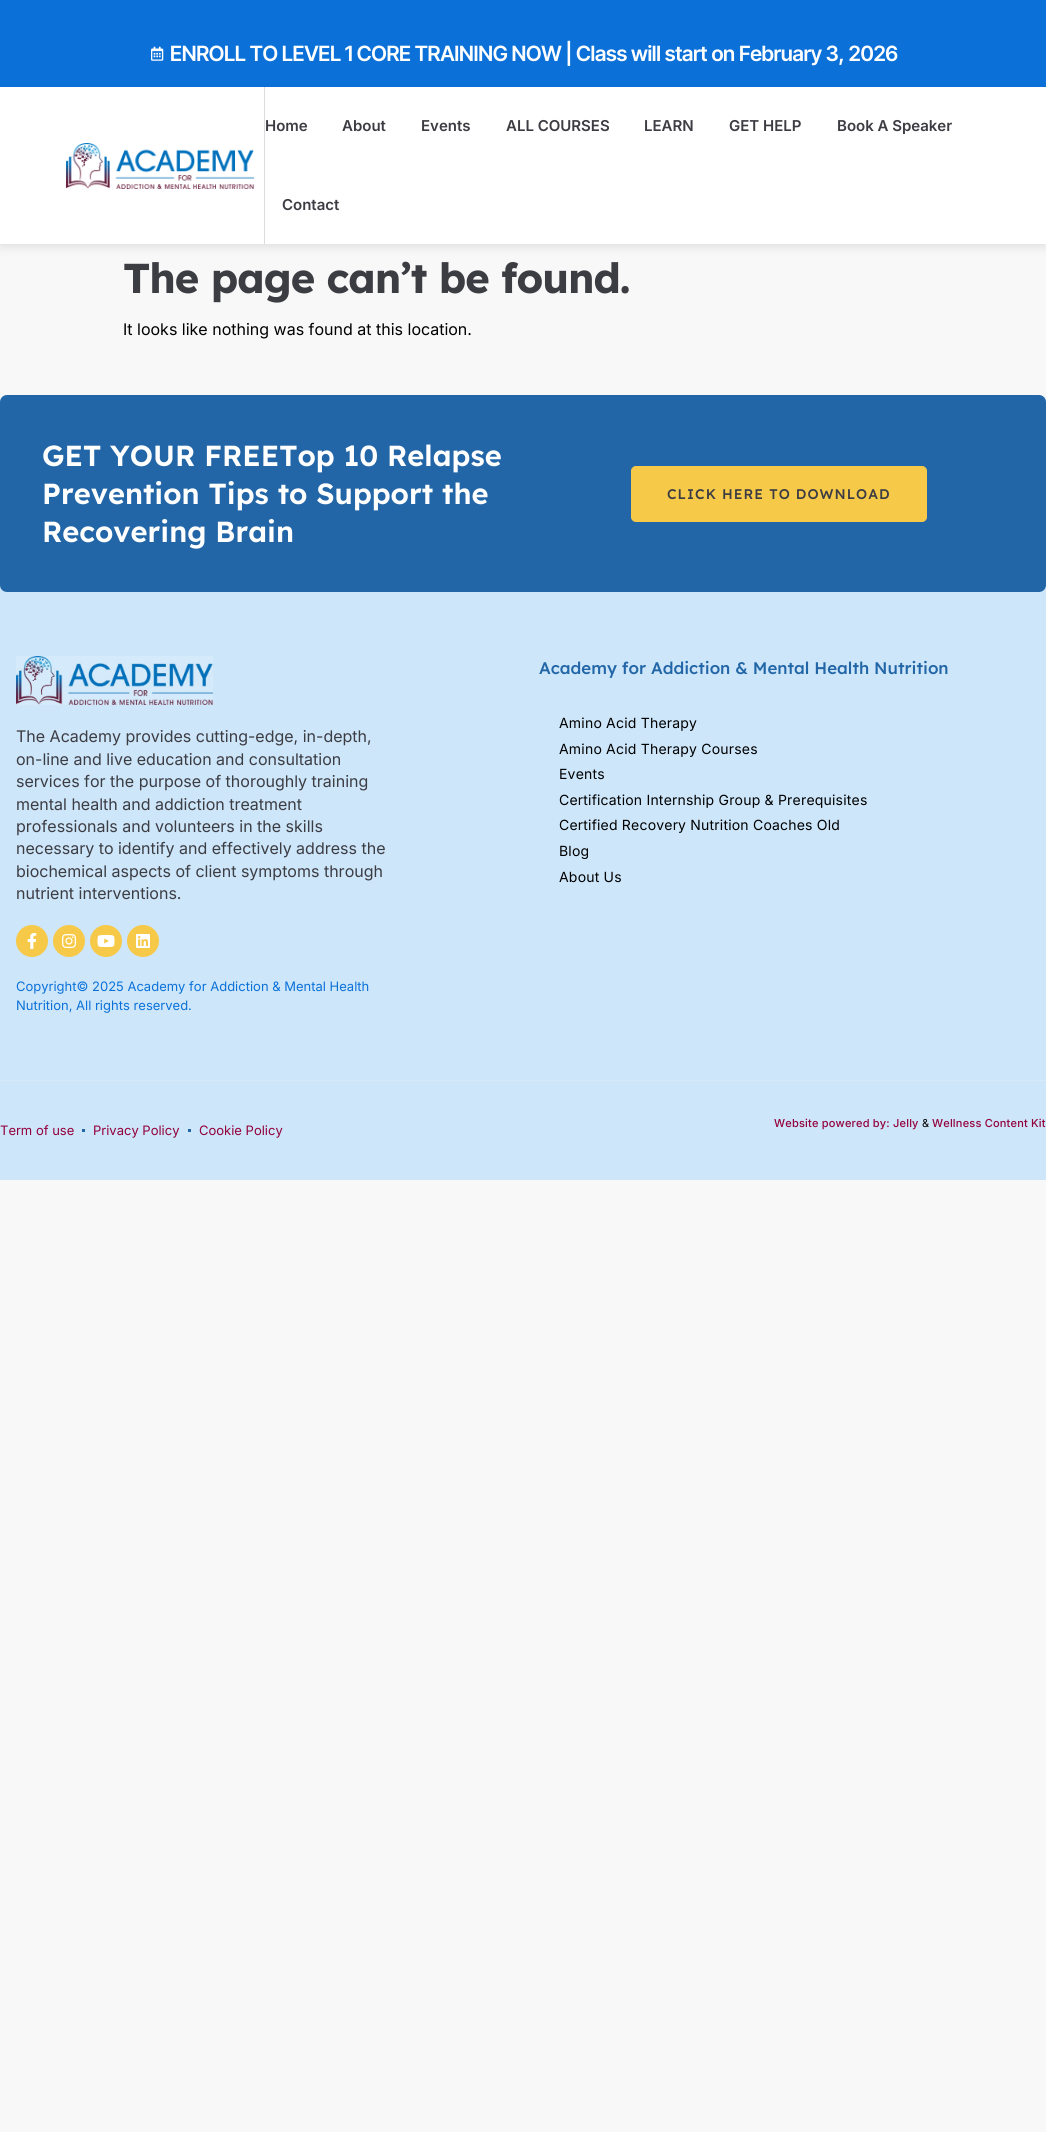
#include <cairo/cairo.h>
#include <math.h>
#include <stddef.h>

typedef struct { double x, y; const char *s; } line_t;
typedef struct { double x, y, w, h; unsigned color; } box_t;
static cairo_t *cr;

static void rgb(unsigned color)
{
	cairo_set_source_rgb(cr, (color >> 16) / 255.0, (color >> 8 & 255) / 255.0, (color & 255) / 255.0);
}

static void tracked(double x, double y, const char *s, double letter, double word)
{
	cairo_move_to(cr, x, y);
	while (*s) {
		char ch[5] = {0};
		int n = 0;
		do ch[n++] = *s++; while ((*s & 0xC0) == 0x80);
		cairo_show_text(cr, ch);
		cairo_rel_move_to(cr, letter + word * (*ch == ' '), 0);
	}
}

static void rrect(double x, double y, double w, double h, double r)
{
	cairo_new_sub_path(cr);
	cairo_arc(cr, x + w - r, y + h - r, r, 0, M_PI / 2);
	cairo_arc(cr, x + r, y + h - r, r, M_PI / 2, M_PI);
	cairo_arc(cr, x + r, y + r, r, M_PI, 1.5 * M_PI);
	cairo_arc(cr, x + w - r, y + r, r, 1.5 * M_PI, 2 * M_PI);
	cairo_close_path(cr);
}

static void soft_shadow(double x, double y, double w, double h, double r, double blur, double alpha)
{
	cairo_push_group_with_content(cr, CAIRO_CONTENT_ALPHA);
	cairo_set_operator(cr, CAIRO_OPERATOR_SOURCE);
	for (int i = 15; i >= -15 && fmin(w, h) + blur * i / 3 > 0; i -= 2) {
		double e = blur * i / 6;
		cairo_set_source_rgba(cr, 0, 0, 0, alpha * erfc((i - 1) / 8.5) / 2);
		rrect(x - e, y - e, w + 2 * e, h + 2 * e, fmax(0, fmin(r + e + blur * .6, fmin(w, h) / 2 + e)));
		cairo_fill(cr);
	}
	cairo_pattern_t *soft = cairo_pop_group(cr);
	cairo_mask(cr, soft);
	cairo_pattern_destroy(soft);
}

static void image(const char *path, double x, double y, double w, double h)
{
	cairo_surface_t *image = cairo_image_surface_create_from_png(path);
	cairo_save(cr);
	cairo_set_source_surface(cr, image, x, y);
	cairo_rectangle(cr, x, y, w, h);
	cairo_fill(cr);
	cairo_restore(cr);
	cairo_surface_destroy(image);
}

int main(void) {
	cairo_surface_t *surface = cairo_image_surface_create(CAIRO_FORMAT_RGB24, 1046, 2132);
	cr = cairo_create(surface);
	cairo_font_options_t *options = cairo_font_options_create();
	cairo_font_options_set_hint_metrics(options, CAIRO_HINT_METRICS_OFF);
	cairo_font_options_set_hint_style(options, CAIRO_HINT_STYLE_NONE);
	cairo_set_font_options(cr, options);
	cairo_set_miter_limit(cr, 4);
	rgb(0xf8f8f8);
	cairo_paint(cr);
	rgb(0x0b71d9);
	cairo_rectangle(cr, 0, 0, 1046, 87);
	cairo_fill(cr);
	image("img/1.png", 151, 46, 13, 15);
	rgb(0x000000);
	soft_shadow(0, 90, 1046, 157, 0, 5, 0.1);
	rgb(0xffffff);
	cairo_rectangle(cr, 0, 87, 1046, 157);
	cairo_fill(cr);
	rgb(0xdcdcde);
	cairo_rectangle(cr, 264, 87, 1, 157);
	cairo_fill(cr);
	image("img/2.png", 66, 143, 188, 46);
	rgb(0xcde6f9);
	cairo_rectangle(cr, 0, 585, 1046, 595);
	cairo_fill(cr);
	rgb(0x2266a8);
	rrect(0, 395, 1046, 197, 7);
	cairo_fill(cr);
	rgb(0xf7c948);
	rrect(631.5, 466.5, 295, 55, 4.5);
	cairo_fill_preserve(cr);
	cairo_set_line_width(cr, 1);
	cairo_stroke(cr);
	image("img/3.png", 16, 656, 197, 49);
	cairo_arc(cr, 32, 941, 16, 0, 2 * M_PI);
	cairo_fill(cr);
	image("img/4.png", 27, 933, 10, 16);
	cairo_arc(cr, 69, 941, 16, 0, 2 * M_PI);
	cairo_fill(cr);
	image("img/5.png", 62, 934, 14, 14);
	cairo_arc(cr, 106, 941, 16, 0, 2 * M_PI);
	cairo_fill(cr);
	image("img/6.png", 97, 935, 18, 12);
	cairo_arc(cr, 143, 941, 16, 0, 2 * M_PI);
	cairo_fill(cr);
	image("img/7.png", 136, 934, 14, 14);
	{
		static const box_t items[] = {
			{0, 1080, 1046, 1, 0xd6eafa},
			{82, 1129, 3, 3, 0x2266a8},
			{188, 1129, 3, 3, 0x2266a8},
		};
		for (size_t i = 0; i < sizeof items / sizeof *items; i++) {
			rgb(items[i].color);
			cairo_rectangle(cr, items[i].x, items[i].y, items[i].w, items[i].h);
			cairo_fill(cr);
		}
	}
	cairo_select_font_face(cr, "Inter Tight SemiBold", CAIRO_FONT_SLANT_NORMAL, CAIRO_FONT_WEIGHT_NORMAL);
	cairo_set_font_size(cr, 21);
	rgb(0xffffff);
	tracked(170, 61, "ENROLL TO LEVEL 1 CORE TRAINING NOW | Class will start on February 3, 2026", -0.3, 0);
	cairo_select_font_face(cr, "Inter SemiBold", CAIRO_FONT_SLANT_NORMAL, CAIRO_FONT_WEIGHT_NORMAL);
	cairo_set_font_size(cr, 15);
	rgb(0x3c3c43);
	{
		static const line_t items[] = {
			{265, 131, "Home"},
			{342, 131, "About"},
			{421, 131, "Events"},
			{506, 131, "ALL COURSES"},
			{644, 131, "LEARN"},
			{729, 131, "GET HELP"},
			{837, 131, "Book A Speaker"},
			{282, 210, "Contact"},
		};
		for (size_t i = 0; i < sizeof items / sizeof *items; i++) {
			cairo_move_to(cr, items[i].x, items[i].y);
			cairo_show_text(cr, items[i].s);
		}
	}
	cairo_select_font_face(cr, "Lexend", CAIRO_FONT_SLANT_NORMAL, CAIRO_FONT_WEIGHT_BOLD);
	cairo_set_font_size(cr, 41.75);
	tracked(123, 293, "The page can’t be found.", -1, 0);
	cairo_select_font_face(cr, "Inter", CAIRO_FONT_SLANT_NORMAL, CAIRO_FONT_WEIGHT_NORMAL);
	cairo_set_font_size(cr, 16);
	rgb(0x000000);
	cairo_move_to(cr, 123, 335);
	cairo_show_text(cr, "It looks like nothing was found at this location.");
	cairo_select_font_face(cr, "Lexend SemiBold", CAIRO_FONT_SLANT_NORMAL, CAIRO_FONT_WEIGHT_NORMAL);
	cairo_set_font_size(cr, 29);
	rgb(0xffffff);
	{
		static const line_t items[] = {
			{42, 466, "GET YOUR FREETop 10 Relapse"},
			{42, 504, "Prevention Tips to Support the"},
			{42, 542, "Recovering Brain"},
		};
		for (size_t i = 0; i < sizeof items / sizeof *items; i++) {
			cairo_move_to(cr, items[i].x, items[i].y);
			cairo_show_text(cr, items[i].s);
		}
	}
	cairo_select_font_face(cr, "Lexend Medium", CAIRO_FONT_SLANT_NORMAL, CAIRO_FONT_WEIGHT_NORMAL);
	cairo_set_font_size(cr, 14);
	rgb(0x3c3c43);
	tracked(667, 499, "CLICK HERE TO DOWNLOAD", 1, 0);
	cairo_select_font_face(cr, "Inter", CAIRO_FONT_SLANT_NORMAL, CAIRO_FONT_WEIGHT_NORMAL);
	cairo_set_font_size(cr, 16);
	{
		static const line_t items[] = {
			{16, 742, "The Academy provides cutting-edge, in-depth,"},
			{16, 765, "on-line and live education and consultation"},
			{16, 787, "services for the purpose of thoroughly training"},
			{16, 810, "mental health and addiction treatment"},
			{16, 832, "professionals and volunteers in the skills"},
			{16, 854, "necessary to identify and effectively address the"},
			{16, 877, "biochemical aspects of client symptoms through"},
			{16, 899, "nutrient interventions."},
		};
		for (size_t i = 0; i < sizeof items / sizeof *items; i++) {
			cairo_move_to(cr, items[i].x, items[i].y);
			cairo_show_text(cr, items[i].s);
		}
	}
	cairo_set_font_size(cr, 13);
	rgb(0x0b71d9);
	cairo_move_to(cr, 16, 991);
	cairo_show_text(cr, "Copyright© 2025 Academy for Addiction & Mental Health");
	cairo_move_to(cr, 16, 1010);
	cairo_show_text(cr, "Nutrition, All rights reserved.");
	cairo_select_font_face(cr, "Lexend Medium", CAIRO_FONT_SLANT_NORMAL, CAIRO_FONT_WEIGHT_NORMAL);
	cairo_set_font_size(cr, 16.8);
	rgb(0x2266a8);
	cairo_move_to(cr, 539, 674);
	cairo_show_text(cr, "Academy for Addiction & Mental Health Nutrition");
	cairo_select_font_face(cr, "Inter", CAIRO_FONT_SLANT_NORMAL, CAIRO_FONT_WEIGHT_NORMAL);
	cairo_set_font_size(cr, 14);
	rgb(0x000000);
	{
		static const line_t items[] = {
			{559, 728, "Amino Acid Therapy"},
			{559, 754, "Amino Acid Therapy Courses"},
			{559, 779, "Events"},
			{559, 805, "Certification Internship Group & Prerequisites"},
			{559, 830, "Certified Recovery Nutrition Coaches Old"},
			{559, 856, "Blog"},
			{559, 882, "About Us"},
		};
		for (size_t i = 0; i < sizeof items / sizeof *items; i++) {
			tracked(items[i].x, items[i].y, items[i].s, 0.2, 0);
		}
	}
	cairo_set_font_size(cr, 13);
	rgb(0x93013c);
	{
		static const line_t items[] = {
			{0, 1135, "Term of use"},
			{93, 1135, "Privacy Policy"},
			{199, 1135, "Cookie Policy"},
		};
		for (size_t i = 0; i < sizeof items / sizeof *items; i++) {
			cairo_move_to(cr, items[i].x, items[i].y);
			cairo_show_text(cr, items[i].s);
		}
	}
	cairo_select_font_face(cr, "Inter Medium", CAIRO_FONT_SLANT_NORMAL, CAIRO_FONT_WEIGHT_NORMAL);
	cairo_set_font_size(cr, 11);
	tracked(774, 1127, "Website powered by: Jelly", 0.2, 0);
	cairo_select_font_face(cr, "Inter", CAIRO_FONT_SLANT_NORMAL, CAIRO_FONT_WEIGHT_NORMAL);
	rgb(0x000000);
	tracked(922, 1127, "&", 0.2, 0);
	cairo_select_font_face(cr, "Inter Medium", CAIRO_FONT_SLANT_NORMAL, CAIRO_FONT_WEIGHT_NORMAL);
	rgb(0x93013c);
	tracked(932, 1127, "Wellness Content Kit", 0.2, 0);
	cairo_surface_write_to_png(surface, "page.png");
	cairo_font_options_destroy(options);
	cairo_destroy(cr);
	cairo_surface_destroy(surface);
	return 0;
}
